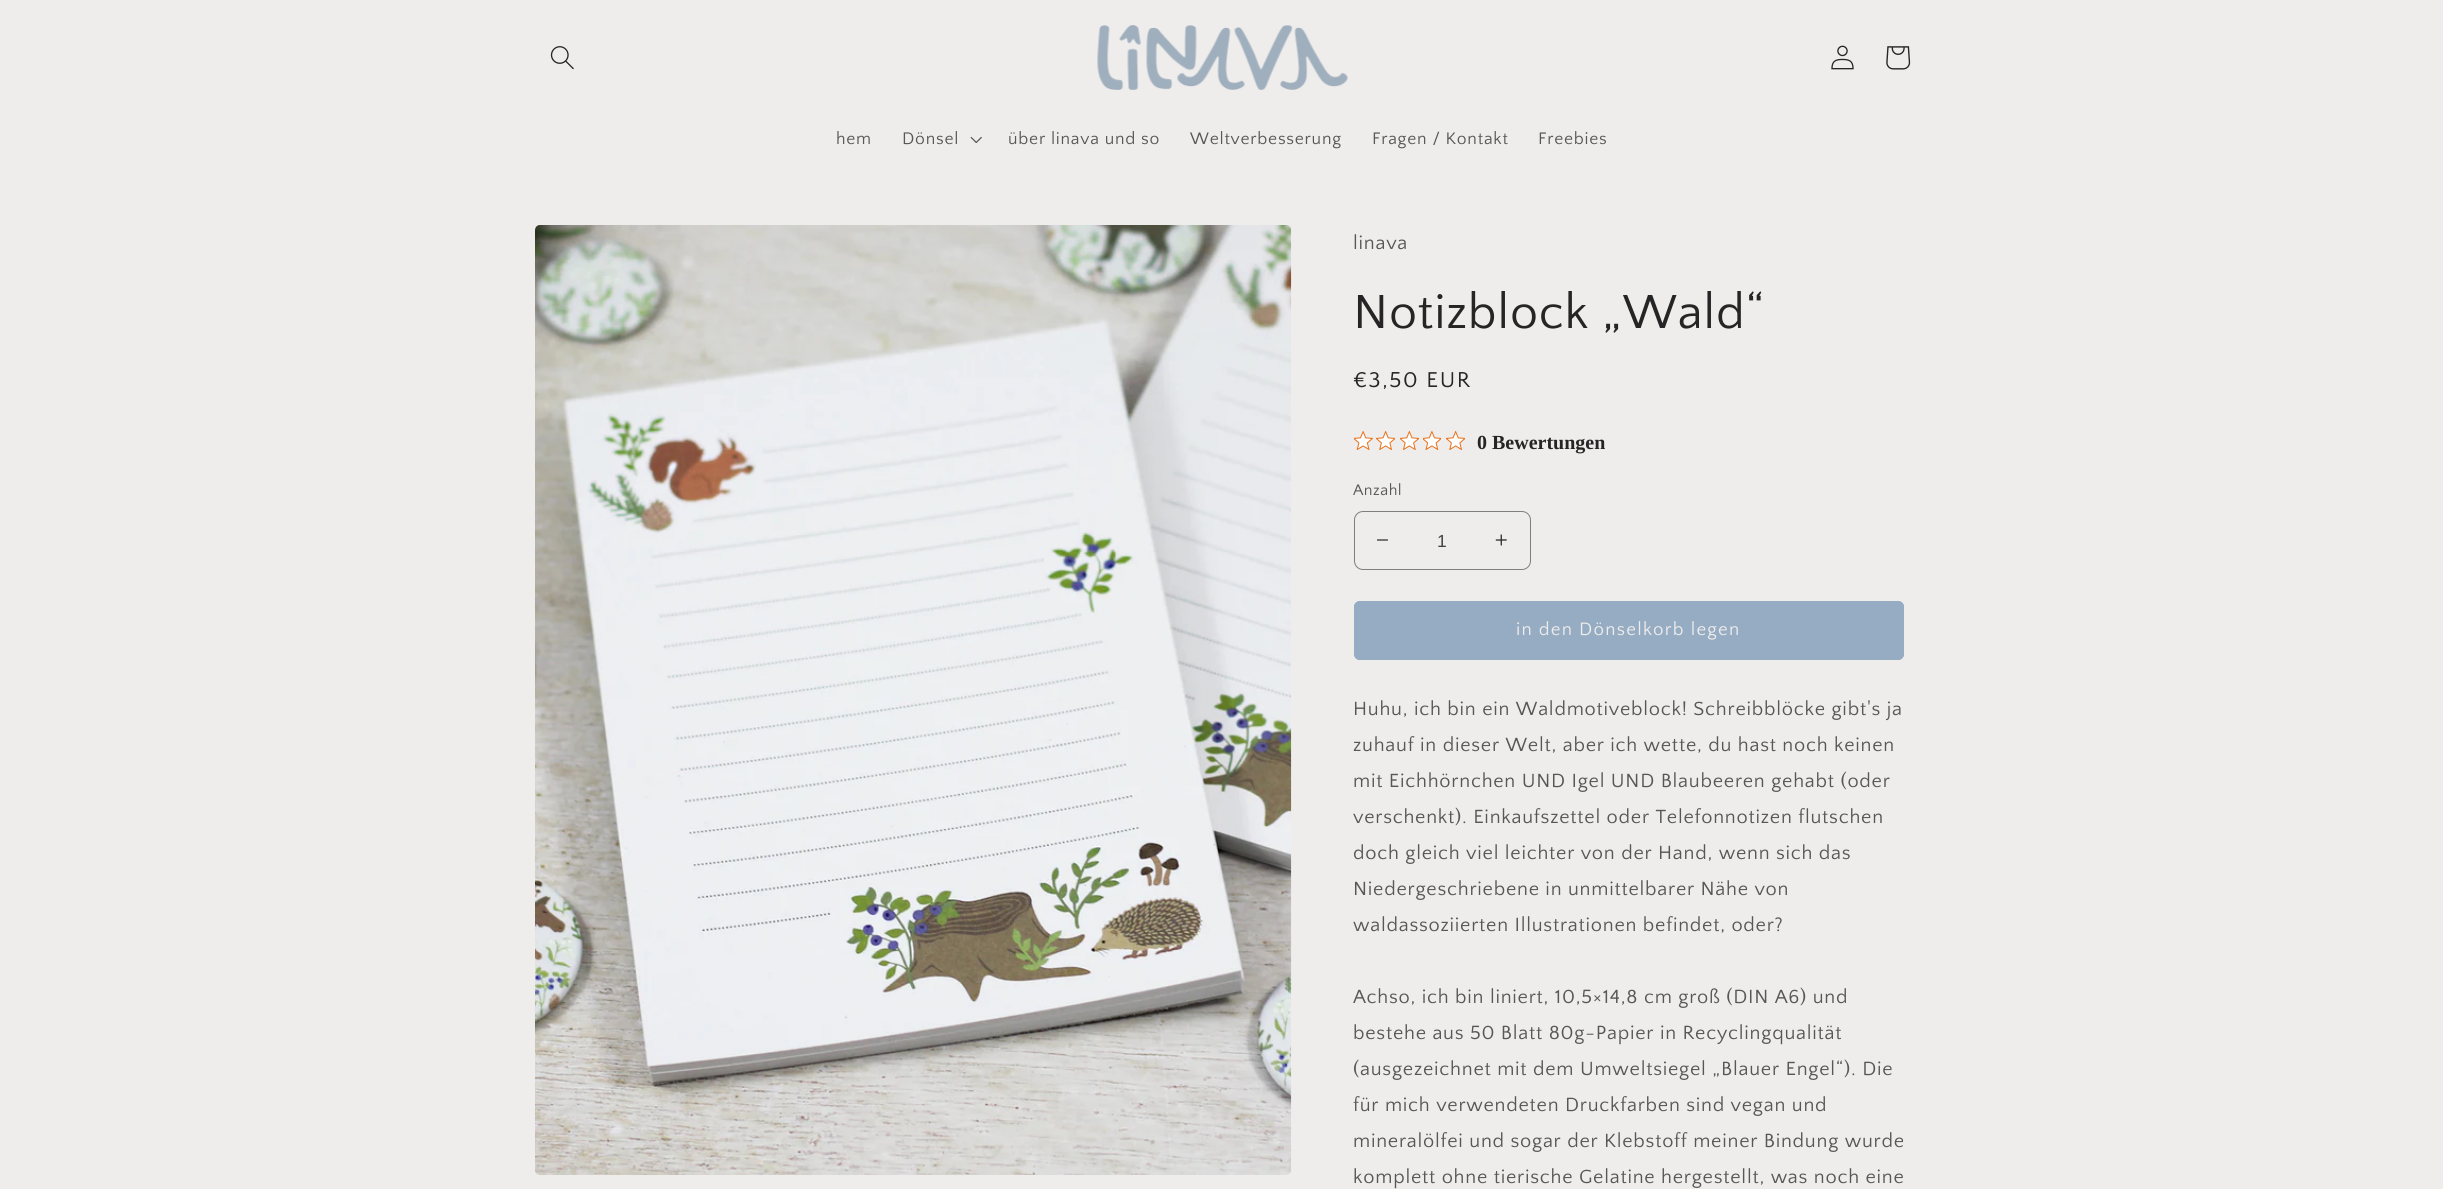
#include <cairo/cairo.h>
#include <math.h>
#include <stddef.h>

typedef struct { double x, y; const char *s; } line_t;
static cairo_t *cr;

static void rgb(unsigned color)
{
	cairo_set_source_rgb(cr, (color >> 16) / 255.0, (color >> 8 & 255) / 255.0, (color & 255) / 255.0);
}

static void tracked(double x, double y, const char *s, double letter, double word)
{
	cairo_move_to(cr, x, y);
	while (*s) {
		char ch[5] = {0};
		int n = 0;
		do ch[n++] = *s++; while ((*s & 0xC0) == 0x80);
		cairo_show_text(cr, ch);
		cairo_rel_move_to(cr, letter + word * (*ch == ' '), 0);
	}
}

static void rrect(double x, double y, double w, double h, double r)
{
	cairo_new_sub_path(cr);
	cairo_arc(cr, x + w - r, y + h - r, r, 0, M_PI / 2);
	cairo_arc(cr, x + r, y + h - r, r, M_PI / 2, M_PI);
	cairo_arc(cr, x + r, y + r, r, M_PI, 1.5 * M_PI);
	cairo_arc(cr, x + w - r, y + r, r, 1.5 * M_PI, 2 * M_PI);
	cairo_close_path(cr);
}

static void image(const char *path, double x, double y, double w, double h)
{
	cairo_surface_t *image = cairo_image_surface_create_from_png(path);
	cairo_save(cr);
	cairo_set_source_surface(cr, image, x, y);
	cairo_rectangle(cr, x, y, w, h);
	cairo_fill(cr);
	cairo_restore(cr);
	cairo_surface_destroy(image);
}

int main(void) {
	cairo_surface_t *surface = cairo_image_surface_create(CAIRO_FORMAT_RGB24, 2443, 1189);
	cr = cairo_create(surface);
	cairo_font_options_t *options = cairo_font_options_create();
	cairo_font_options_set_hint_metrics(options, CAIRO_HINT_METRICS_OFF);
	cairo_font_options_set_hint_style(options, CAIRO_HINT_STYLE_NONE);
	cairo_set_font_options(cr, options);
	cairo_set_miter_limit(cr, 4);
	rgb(0xefecec);
	cairo_paint(cr);
	image("img/1.png", 550, 46, 24, 24);
	image("img/2.png", 1097, 25, 251, 65);
	image("img/3.png", 1831, 45, 23, 25);
	image("img/4.png", 1886, 46, 25, 24);
	image("img/5.png", 970, 136, 12, 8);
	image("img/6.png", 535, 225, 757, 950);
	image("img/7.png", 1354, 431, 19, 19);
	image("img/8.png", 1376, 431, 19, 19);
	image("img/9.png", 1400, 431, 19, 19);
	image("img/10.png", 1423, 431, 18, 19);
	image("img/8.png", 1446, 431, 19, 19);
	image("img/11.png", 1377, 539, 11, 2);
	image("img/12.png", 1495, 534, 12, 12);
	rrect(1354.5, 511.5, 176, 58, 8.5);
	rgb(0x807f7f);
	cairo_set_line_width(cr, 1);
	cairo_stroke(cr);
	rgb(0x95acc2);
	rrect(1354, 601, 550, 59, 6);
	cairo_fill(cr);
	rrect(1354.5, 601.5, 549, 58, 5.5);
	cairo_stroke(cr);
	cairo_select_font_face(cr, "Quattrocento Sans", CAIRO_FONT_SLANT_NORMAL, CAIRO_FONT_WEIGHT_NORMAL);
	cairo_set_font_size(cr, 17.5);
	rgb(0x585757);
	{
		static const line_t items[] = {
			{836, 144, "hem"},
			{902, 144, "Dönsel"},
			{1008, 144, "über linava und so"},
			{1190, 144, "Weltverbesserung"},
			{1372, 144, "Fragen / Kontakt"},
			{1538, 144, "Freebies"},
		};
		for (size_t i = 0; i < sizeof items / sizeof *items; i++) {
			tracked(items[i].x, items[i].y, items[i].s, 0.75, 0);
		}
	}
	cairo_set_font_size(cr, 20);
	tracked(1353, 249, "linava", 0.75, 0);
	cairo_set_font_size(cr, 50);
	rgb(0x252525);
	tracked(1353, 328, "Notizblock „Wald“", 0.75, 0);
	cairo_set_font_size(cr, 22.5);
	tracked(1353, 387, "€3,50 EUR", 1.6, 0);
	cairo_select_font_face(cr, "Liberation Serif", CAIRO_FONT_SLANT_NORMAL, CAIRO_FONT_WEIGHT_BOLD);
	cairo_set_font_size(cr, 20);
	cairo_move_to(cr, 1477, 449);
	cairo_show_text(cr, "0 Bewertungen");
	cairo_select_font_face(cr, "Quattrocento Sans", CAIRO_FONT_SLANT_NORMAL, CAIRO_FONT_WEIGHT_NORMAL);
	cairo_set_font_size(cr, 16);
	rgb(0x585757);
	tracked(1353, 495, "Anzahl", 0.5, 0);
	cairo_select_font_face(cr, "Liberation Sans", CAIRO_FONT_SLANT_NORMAL, CAIRO_FONT_WEIGHT_NORMAL);
	cairo_set_font_size(cr, 17.5);
	rgb(0x434343);
	cairo_move_to(cr, 1437, 547);
	cairo_show_text(cr, "1");
	cairo_select_font_face(cr, "Quattrocento Sans", CAIRO_FONT_SLANT_NORMAL, CAIRO_FONT_WEIGHT_NORMAL);
	cairo_set_font_size(cr, 18.75);
	rgb(0xefecec);
	tracked(1516, 635, "in den Dönselkorb legen", 1.25, 0);
	cairo_set_font_size(cr, 20);
	rgb(0x585757);
	{
		static const line_t items[] = {
			{1353, 715, "Huhu, ich bin ein Waldmotiveblock! Schreibblöcke gibt's ja"},
			{1353, 751, "zuhauf in dieser Welt, aber ich wette, du hast noch keinen"},
			{1353, 787, "mit Eichhörnchen UND Igel UND Blaubeeren gehabt (oder"},
			{1353, 823, "verschenkt). Einkaufszettel oder Telefonnotizen flutschen"},
			{1353, 859, "doch gleich viel leichter von der Hand, wenn sich das"},
			{1353, 895, "Niedergeschriebene in unmittelbarer Nähe von"},
			{1353, 931, "waldassoziierten Illustrationen befindet, oder?"},
			{1353, 1003, "Achso, ich bin liniert, 10,5×14,8 cm groß (DIN A6) und"},
			{1353, 1039, "bestehe aus 50 Blatt 80g-Papier in Recyclingqualität"},
			{1353, 1075, "(ausgezeichnet mit dem Umweltsiegel „Blauer Engel“). Die"},
			{1353, 1111, "für mich verwendeten Druckfarben sind vegan und"},
			{1353, 1147, "mineralölfei und sogar der Klebstoff meiner Bindung wurde"},
			{1353, 1183, "komplett ohne tierische Gelatine hergestellt, was noch eine"},
		};
		for (size_t i = 0; i < sizeof items / sizeof *items; i++) {
			tracked(items[i].x, items[i].y, items[i].s, 0.75, 0);
		}
	}
	cairo_surface_write_to_png(surface, "page.png");
	cairo_font_options_destroy(options);
	cairo_destroy(cr);
	cairo_surface_destroy(surface);
	return 0;
}
